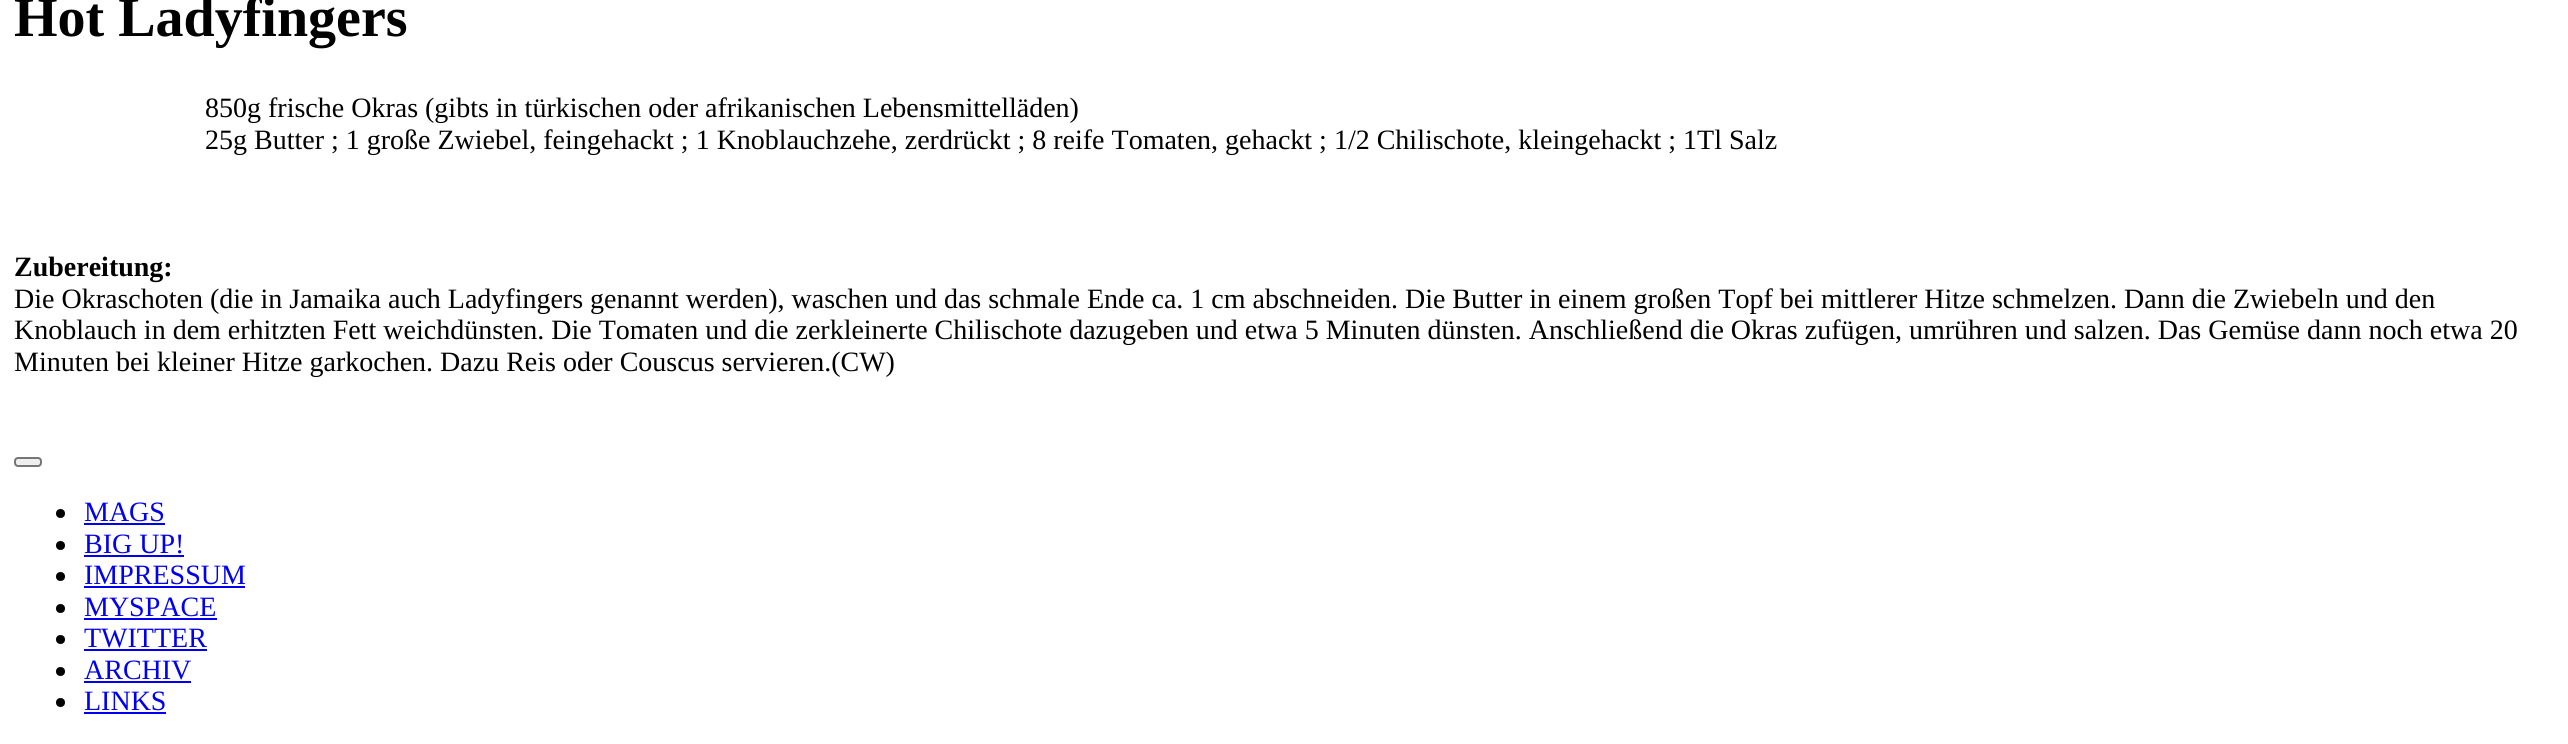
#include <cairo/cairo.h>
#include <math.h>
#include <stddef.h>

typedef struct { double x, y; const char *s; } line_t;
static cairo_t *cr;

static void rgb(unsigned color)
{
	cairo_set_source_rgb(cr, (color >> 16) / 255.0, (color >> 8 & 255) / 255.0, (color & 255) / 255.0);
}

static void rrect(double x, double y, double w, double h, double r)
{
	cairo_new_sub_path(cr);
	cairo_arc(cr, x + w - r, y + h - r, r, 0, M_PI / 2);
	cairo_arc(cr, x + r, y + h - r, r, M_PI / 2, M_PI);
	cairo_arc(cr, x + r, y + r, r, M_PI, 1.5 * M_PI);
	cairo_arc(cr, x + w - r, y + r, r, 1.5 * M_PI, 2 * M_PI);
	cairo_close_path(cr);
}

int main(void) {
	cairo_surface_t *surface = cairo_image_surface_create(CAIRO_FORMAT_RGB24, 2568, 744);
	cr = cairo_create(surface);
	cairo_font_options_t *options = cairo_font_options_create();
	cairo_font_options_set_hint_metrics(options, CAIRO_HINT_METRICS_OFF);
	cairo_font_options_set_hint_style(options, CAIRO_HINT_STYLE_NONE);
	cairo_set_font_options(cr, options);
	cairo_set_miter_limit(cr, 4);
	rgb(0xffffff);
	cairo_paint(cr);
	rgb(0xefefef);
	rrect(15, 458, 26, 8, 3);
	cairo_fill_preserve(cr);
	rgb(0x767676);
	cairo_stroke(cr);
	rgb(0x000000);
	cairo_arc(cr, 60.5, 513.5, 4.5, 0, 2 * M_PI);
	cairo_fill(cr);
	rgb(0x0000ee);
	cairo_rectangle(cr, 84, 523, 81, 2);
	cairo_fill(cr);
	rgb(0x000000);
	cairo_arc(cr, 60.5, 545.5, 4.5, 0, 2 * M_PI);
	cairo_fill(cr);
	rgb(0x0000ee);
	cairo_rectangle(cr, 84, 555, 100, 2);
	cairo_fill(cr);
	rgb(0x000000);
	cairo_arc(cr, 60.5, 576.5, 4.5, 0, 2 * M_PI);
	cairo_fill(cr);
	rgb(0x0000ee);
	cairo_rectangle(cr, 84, 586, 161, 2);
	cairo_fill(cr);
	rgb(0x000000);
	cairo_arc(cr, 60.5, 608.5, 4.5, 0, 2 * M_PI);
	cairo_fill(cr);
	rgb(0x0000ee);
	cairo_rectangle(cr, 84, 618, 133, 2);
	cairo_fill(cr);
	rgb(0x000000);
	cairo_arc(cr, 60.5, 639.5, 4.5, 0, 2 * M_PI);
	cairo_fill(cr);
	rgb(0x0000ee);
	cairo_rectangle(cr, 84, 649, 123, 2);
	cairo_fill(cr);
	rgb(0x000000);
	cairo_arc(cr, 60.5, 671.5, 4.5, 0, 2 * M_PI);
	cairo_fill(cr);
	rgb(0x0000ee);
	cairo_rectangle(cr, 84, 681, 107, 2);
	cairo_fill(cr);
	rgb(0x000000);
	cairo_arc(cr, 60.5, 702.5, 4.5, 0, 2 * M_PI);
	cairo_fill(cr);
	rgb(0x0000ee);
	cairo_rectangle(cr, 84, 712, 82, 2);
	cairo_fill(cr);
	cairo_select_font_face(cr, "Liberation Serif", CAIRO_FONT_SLANT_NORMAL, CAIRO_FONT_WEIGHT_BOLD);
	cairo_set_font_size(cr, 56);
	rgb(0x000000);
	cairo_move_to(cr, 14, 36);
	cairo_show_text(cr, "Hot Ladyfingers");
	cairo_select_font_face(cr, "Liberation Serif", CAIRO_FONT_SLANT_NORMAL, CAIRO_FONT_WEIGHT_NORMAL);
	cairo_set_font_size(cr, 28);
	cairo_move_to(cr, 205, 117);
	cairo_show_text(cr, "850g frische Okras (gibts in türkischen oder afrikanischen Lebensmittelläden)");
	cairo_move_to(cr, 205, 149);
	cairo_show_text(cr, "25g Butter ; 1 große Zwiebel, feingehackt ; 1 Knoblauchzehe, zerdrückt ; 8 reife Tomaten, gehackt ; 1/2 Chilischote, kleingehackt ; 1Tl Salz");
	cairo_select_font_face(cr, "Liberation Serif", CAIRO_FONT_SLANT_NORMAL, CAIRO_FONT_WEIGHT_BOLD);
	cairo_move_to(cr, 14, 276);
	cairo_show_text(cr, "Zubereitung:");
	cairo_select_font_face(cr, "Liberation Serif", CAIRO_FONT_SLANT_NORMAL, CAIRO_FONT_WEIGHT_NORMAL);
	{
		static const line_t items[] = {
			{14, 308, "Die Okraschoten (die in Jamaika auch Ladyfingers genannt werden), waschen und das schmale Ende ca. 1 cm abschneiden. Die Butter in einem großen Topf bei mittlerer Hitze schmelzen. Dann die Zwiebeln und den"},
			{14, 339, "Knoblauch in dem erhitzten Fett weichdünsten. Die Tomaten und die zerkleinerte Chilischote dazugeben und etwa 5 Minuten dünsten. Anschließend die Okras zufügen, umrühren und salzen. Das Gemüse dann noch etwa 20"},
			{14, 371, "Minuten bei kleiner Hitze garkochen. Dazu Reis oder Couscus servieren.(CW)"},
		};
		for (size_t i = 0; i < sizeof items / sizeof *items; i++) {
			cairo_move_to(cr, items[i].x, items[i].y);
			cairo_show_text(cr, items[i].s);
		}
	}
	rgb(0x0000ee);
	{
		static const line_t items[] = {
			{84, 521, "MAGS"},
			{84, 553, "BIG UP!"},
			{84, 584, "IMPRESSUM"},
			{84, 616, "MYSPACE"},
			{84, 647, "TWITTER"},
			{84, 679, "ARCHIV"},
			{84, 710, "LINKS"},
		};
		for (size_t i = 0; i < sizeof items / sizeof *items; i++) {
			cairo_move_to(cr, items[i].x, items[i].y);
			cairo_show_text(cr, items[i].s);
		}
	}
	cairo_surface_write_to_png(surface, "page.png");
	cairo_font_options_destroy(options);
	cairo_destroy(cr);
	cairo_surface_destroy(surface);
	return 0;
}
